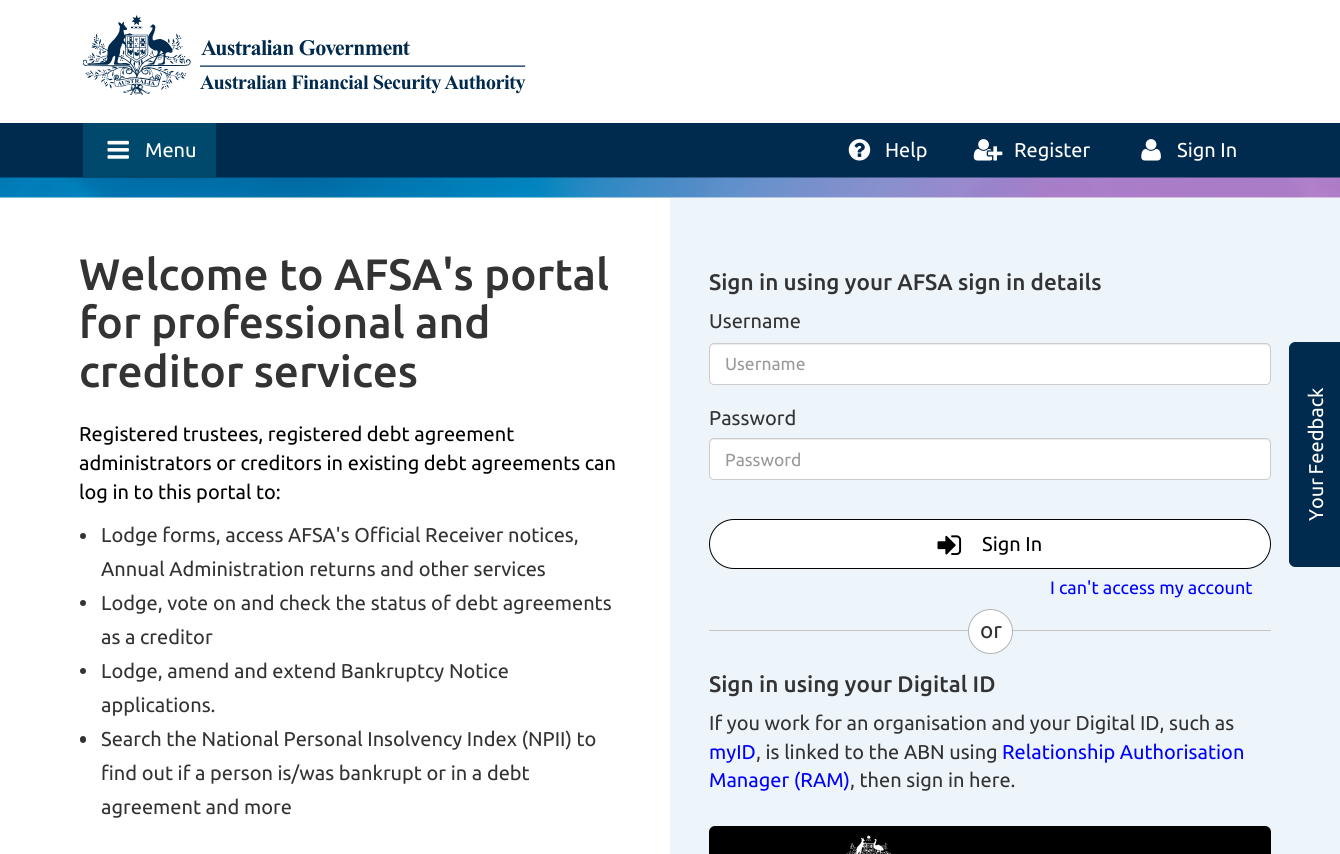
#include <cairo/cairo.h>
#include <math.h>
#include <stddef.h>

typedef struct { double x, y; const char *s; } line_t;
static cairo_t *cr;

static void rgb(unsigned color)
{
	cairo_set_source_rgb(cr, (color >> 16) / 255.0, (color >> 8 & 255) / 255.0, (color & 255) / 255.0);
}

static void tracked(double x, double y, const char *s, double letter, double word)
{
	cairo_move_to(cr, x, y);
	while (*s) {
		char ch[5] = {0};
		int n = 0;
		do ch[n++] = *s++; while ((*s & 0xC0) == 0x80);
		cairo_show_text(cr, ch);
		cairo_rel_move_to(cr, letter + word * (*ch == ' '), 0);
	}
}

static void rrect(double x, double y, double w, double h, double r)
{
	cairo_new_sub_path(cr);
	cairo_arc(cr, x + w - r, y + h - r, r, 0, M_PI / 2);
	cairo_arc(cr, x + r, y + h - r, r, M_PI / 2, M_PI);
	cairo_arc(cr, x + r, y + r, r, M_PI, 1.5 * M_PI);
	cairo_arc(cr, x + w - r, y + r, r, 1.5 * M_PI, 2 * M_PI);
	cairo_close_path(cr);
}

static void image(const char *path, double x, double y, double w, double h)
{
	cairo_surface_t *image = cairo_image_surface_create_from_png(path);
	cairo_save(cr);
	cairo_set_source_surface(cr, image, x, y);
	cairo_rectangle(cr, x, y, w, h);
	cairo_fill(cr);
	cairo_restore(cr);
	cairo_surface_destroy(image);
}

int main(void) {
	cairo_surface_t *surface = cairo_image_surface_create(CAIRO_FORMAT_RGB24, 1340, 854);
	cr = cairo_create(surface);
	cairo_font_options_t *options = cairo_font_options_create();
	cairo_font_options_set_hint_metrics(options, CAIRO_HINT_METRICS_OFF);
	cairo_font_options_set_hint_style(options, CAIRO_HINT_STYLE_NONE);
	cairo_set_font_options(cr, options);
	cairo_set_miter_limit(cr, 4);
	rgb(0xffffff);
	cairo_paint(cr);
	image("img/1.png", 83, 15, 443, 80);
	rgb(0x002a4e);
	cairo_rectangle(cr, 0, 123, 1340, 55);
	cairo_fill(cr);
	image("img/6.png", 0, 177, 1340, 21);
	rgb(0x00496c);
	cairo_rectangle(cr, 83, 123, 133, 55);
	cairo_fill(cr);
	image("img/2.png", 107, 140, 22, 19);
	image("img/3.png", 848, 139, 23, 22);
	image("img/4.png", 973, 139, 30, 22);
	image("img/5.png", 1141, 139, 20, 22);
	rgb(0x333333);
	cairo_arc(cr, 83, 536, 3, 0, 2 * M_PI);
	cairo_fill(cr);
	cairo_arc(cr, 83, 603, 3, 0, 2 * M_PI);
	cairo_fill(cr);
	cairo_arc(cr, 83, 671, 3, 0, 2 * M_PI);
	cairo_fill(cr);
	rrect(80, 736, 6, 7, 3);
	cairo_fill(cr);
	rgb(0xedf5fb);
	cairo_rectangle(cr, 670, 198, 670, 656);
	cairo_fill(cr);
	rgb(0xffffff);
	rrect(709, 343, 562, 42, 5);
	cairo_fill(cr);
	rgb(0xececec);
	cairo_new_path(cr);
	cairo_move_to(cr, 714, 345);
	cairo_line_to(cr, 1266, 345);
	cairo_curve_to(cr, 1268, 345, 1270, 347, 1270, 349);
	cairo_curve_to(cr, 1270, 346, 1269, 344, 1266, 344);
	cairo_line_to(cr, 714, 344);
	cairo_curve_to(cr, 711, 344, 710, 346, 710, 349);
	cairo_curve_to(cr, 710, 347, 712, 345, 714, 345);
	cairo_close_path(cr);
	cairo_fill(cr);
	rrect(709.5, 343.5, 561, 41, 4.5);
	rgb(0xcccccc);
	cairo_set_line_width(cr, 1);
	cairo_stroke(cr);
	rgb(0xffffff);
	rrect(709, 438, 562, 42, 5);
	cairo_fill(cr);
	rgb(0xececec);
	cairo_new_path(cr);
	cairo_move_to(cr, 714, 440);
	cairo_line_to(cr, 1266, 440);
	cairo_curve_to(cr, 1268, 440, 1270, 442, 1270, 444);
	cairo_curve_to(cr, 1270, 441, 1269, 439, 1266, 439);
	cairo_line_to(cr, 714, 439);
	cairo_curve_to(cr, 711, 439, 710, 441, 710, 444);
	cairo_curve_to(cr, 710, 442, 712, 440, 714, 440);
	cairo_close_path(cr);
	cairo_fill(cr);
	rrect(709.5, 438.5, 561, 41, 4.5);
	rgb(0xcccccc);
	cairo_stroke(cr);
	rgb(0xffffff);
	rrect(709.5, 519.5, 561, 49, 24.5);
	cairo_fill_preserve(cr);
	rgb(0x000000);
	cairo_stroke(cr);
	image("img/7.png", 937, 535, 25, 20);
	rgb(0xc5c5c5);
	cairo_rectangle(cr, 709, 630, 562, 1);
	cairo_fill(cr);
	rgb(0xffffff);
	cairo_arc(cr, 990.5, 631.5, 22.5, 0, 2 * M_PI);
	cairo_fill(cr);
	cairo_arc(cr, 990.5, 631.5, 22, 0, 2 * M_PI);
	cairo_set_source_rgba(cr, 0.004, 0.004, 0.004, 0.3);
	cairo_stroke(cr);
	rgb(0x000000);
	rrect(709, 826, 562, 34, 6);
	cairo_fill(cr);
	image("img/8.png", 846, 835, 45, 19);
	rgb(0x002a4e);
	cairo_new_path(cr);
	cairo_move_to(cr, 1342, 567);
	cairo_line_to(cr, 1295, 567);
	cairo_curve_to(cr, 1292, 567, 1289, 564, 1289, 561);
	cairo_line_to(cr, 1289, 348);
	cairo_curve_to(cr, 1289, 345, 1292, 342, 1295, 342);
	cairo_line_to(cr, 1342, 342);
	cairo_close_path(cr);
	cairo_fill(cr);
	cairo_select_font_face(cr, "Ubuntu", CAIRO_FONT_SLANT_NORMAL, CAIRO_FONT_WEIGHT_NORMAL);
	cairo_set_font_size(cr, 20);
	rgb(0xffffff);
	{
		static const line_t items[] = {
			{145, 157, "Menu"},
			{885, 157, "Help"},
			{1014, 157, "Register"},
			{1177, 157, "Sign In"},
		};
		for (size_t i = 0; i < sizeof items / sizeof *items; i++) {
			cairo_move_to(cr, items[i].x, items[i].y);
			cairo_show_text(cr, items[i].s);
		}
	}
	cairo_select_font_face(cr, "Ubuntu Medium", CAIRO_FONT_SLANT_NORMAL, CAIRO_FONT_WEIGHT_NORMAL);
	cairo_set_font_size(cr, 44);
	rgb(0x333333);
	{
		static const line_t items[] = {
			{79, 290, "Welcome to AFSA's portal"},
			{79, 338, "for professional and"},
			{79, 387, "creditor services"},
		};
		for (size_t i = 0; i < sizeof items / sizeof *items; i++) {
			cairo_move_to(cr, items[i].x, items[i].y);
			cairo_show_text(cr, items[i].s);
		}
	}
	cairo_select_font_face(cr, "Ubuntu", CAIRO_FONT_SLANT_NORMAL, CAIRO_FONT_WEIGHT_NORMAL);
	cairo_set_font_size(cr, 20);
	rgb(0x000000);
	{
		static const line_t items[] = {
			{79, 441, "Registered trustees, registered debt agreement"},
			{79, 470, "administrators or creditors in existing debt agreements can"},
			{79, 499, "log in to this portal to:"},
		};
		for (size_t i = 0; i < sizeof items / sizeof *items; i++) {
			cairo_move_to(cr, items[i].x, items[i].y);
			cairo_show_text(cr, items[i].s);
		}
	}
	rgb(0x333333);
	{
		static const line_t items[] = {
			{101, 542, "Lodge forms, access AFSA's Official Receiver notices,"},
			{101, 576, "Annual Administration returns and other services"},
			{101, 610, "Lodge, vote on and check the status of debt agreements"},
			{101, 644, "as a creditor"},
			{101, 678, "Lodge, amend and extend Bankruptcy Notice"},
			{101, 712, "applications."},
			{101, 746, "Search the National Personal Insolvency Index (NPII) to"},
			{101, 780, "find out if a person is/was bankrupt or in a debt"},
			{101, 814, "agreement and more"},
		};
		for (size_t i = 0; i < sizeof items / sizeof *items; i++) {
			cairo_move_to(cr, items[i].x, items[i].y);
			cairo_show_text(cr, items[i].s);
		}
	}
	cairo_select_font_face(cr, "Ubuntu Medium", CAIRO_FONT_SLANT_NORMAL, CAIRO_FONT_WEIGHT_NORMAL);
	cairo_set_font_size(cr, 22.5);
	cairo_move_to(cr, 709, 290);
	cairo_show_text(cr, "Sign in using your AFSA sign in details");
	cairo_select_font_face(cr, "Ubuntu", CAIRO_FONT_SLANT_NORMAL, CAIRO_FONT_WEIGHT_NORMAL);
	cairo_set_font_size(cr, 20);
	cairo_move_to(cr, 709, 328);
	cairo_show_text(cr, "Username");
	cairo_set_font_size(cr, 17.5);
	rgb(0x999999);
	cairo_move_to(cr, 725, 370);
	cairo_show_text(cr, "Username");
	cairo_set_font_size(cr, 20);
	rgb(0x333333);
	cairo_move_to(cr, 709, 425);
	cairo_show_text(cr, "Password");
	cairo_set_font_size(cr, 17.5);
	rgb(0x999999);
	cairo_move_to(cr, 725, 466);
	cairo_show_text(cr, "Password");
	cairo_set_font_size(cr, 20);
	rgb(0x000000);
	cairo_move_to(cr, 982, 551);
	cairo_show_text(cr, "Sign In");
	cairo_set_font_size(cr, 18);
	rgb(0x0000ff);
	cairo_move_to(cr, 1050, 594);
	cairo_show_text(cr, "I can't access my account");
	cairo_set_font_size(cr, 22.5);
	rgb(0x333333);
	cairo_move_to(cr, 980, 638);
	cairo_show_text(cr, "or");
	cairo_select_font_face(cr, "Ubuntu Medium", CAIRO_FONT_SLANT_NORMAL, CAIRO_FONT_WEIGHT_NORMAL);
	cairo_move_to(cr, 709, 692);
	cairo_show_text(cr, "Sign in using your Digital ID");
	cairo_select_font_face(cr, "Ubuntu", CAIRO_FONT_SLANT_NORMAL, CAIRO_FONT_WEIGHT_NORMAL);
	cairo_set_font_size(cr, 20);
	cairo_move_to(cr, 709, 730);
	cairo_show_text(cr, "If you work for an organisation and your Digital ID, such as");
	rgb(0x0000ff);
	cairo_move_to(cr, 709, 759);
	cairo_show_text(cr, "myID");
	rgb(0x333333);
	cairo_move_to(cr, 756, 759);
	cairo_show_text(cr, ", is linked to the ABN using");
	rgb(0x0000ff);
	cairo_move_to(cr, 1002, 759);
	cairo_show_text(cr, "Relationship Authorisation");
	cairo_move_to(cr, 709, 787);
	cairo_show_text(cr, "Manager (RAM)");
	rgb(0x333333);
	cairo_move_to(cr, 850, 787);
	cairo_show_text(cr, ", then sign in here.");
	rgb(0xffffff);
	cairo_save(cr);
	cairo_translate(cr, 1323, 521);
	cairo_rotate(cr, -90 * M_PI / 180);
	tracked(0, 0, "Your Feedback", 0, -1);
	cairo_restore(cr);
	cairo_surface_write_to_png(surface, "page.png");
	cairo_font_options_destroy(options);
	cairo_destroy(cr);
	cairo_surface_destroy(surface);
	return 0;
}
